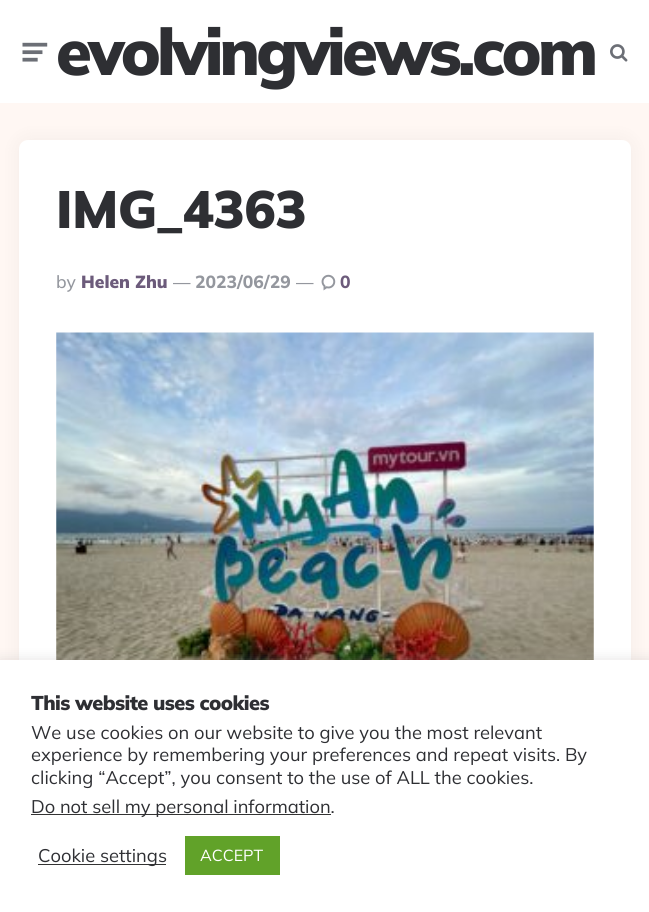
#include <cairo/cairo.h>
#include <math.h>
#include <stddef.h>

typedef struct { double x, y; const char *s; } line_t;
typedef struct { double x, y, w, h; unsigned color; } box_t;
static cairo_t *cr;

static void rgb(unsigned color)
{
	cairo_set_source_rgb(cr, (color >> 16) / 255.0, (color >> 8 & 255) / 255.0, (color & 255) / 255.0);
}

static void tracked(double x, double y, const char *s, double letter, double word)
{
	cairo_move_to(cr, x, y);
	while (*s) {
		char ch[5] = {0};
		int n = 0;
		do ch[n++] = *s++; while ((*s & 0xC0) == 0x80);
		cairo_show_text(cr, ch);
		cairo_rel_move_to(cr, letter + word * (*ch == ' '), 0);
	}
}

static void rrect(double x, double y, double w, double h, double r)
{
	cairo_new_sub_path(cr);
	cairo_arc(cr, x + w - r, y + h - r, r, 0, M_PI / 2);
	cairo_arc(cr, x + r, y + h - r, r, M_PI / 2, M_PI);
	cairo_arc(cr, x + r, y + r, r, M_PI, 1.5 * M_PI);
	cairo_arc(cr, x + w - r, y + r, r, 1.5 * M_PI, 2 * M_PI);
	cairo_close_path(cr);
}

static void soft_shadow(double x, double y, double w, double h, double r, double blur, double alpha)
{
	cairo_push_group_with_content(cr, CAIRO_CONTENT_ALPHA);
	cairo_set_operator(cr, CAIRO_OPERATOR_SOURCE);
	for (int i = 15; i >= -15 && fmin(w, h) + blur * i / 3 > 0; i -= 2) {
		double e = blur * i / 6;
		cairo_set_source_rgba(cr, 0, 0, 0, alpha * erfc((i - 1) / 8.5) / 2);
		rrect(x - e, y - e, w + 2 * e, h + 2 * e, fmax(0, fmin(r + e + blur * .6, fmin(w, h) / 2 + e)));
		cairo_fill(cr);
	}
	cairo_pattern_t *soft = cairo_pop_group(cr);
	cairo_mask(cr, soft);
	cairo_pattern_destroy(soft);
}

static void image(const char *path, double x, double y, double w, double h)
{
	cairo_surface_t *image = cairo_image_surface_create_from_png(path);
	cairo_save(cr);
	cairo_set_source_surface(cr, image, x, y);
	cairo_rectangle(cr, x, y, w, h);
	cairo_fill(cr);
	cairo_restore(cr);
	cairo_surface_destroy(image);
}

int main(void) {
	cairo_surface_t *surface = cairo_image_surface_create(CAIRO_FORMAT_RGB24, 649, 912);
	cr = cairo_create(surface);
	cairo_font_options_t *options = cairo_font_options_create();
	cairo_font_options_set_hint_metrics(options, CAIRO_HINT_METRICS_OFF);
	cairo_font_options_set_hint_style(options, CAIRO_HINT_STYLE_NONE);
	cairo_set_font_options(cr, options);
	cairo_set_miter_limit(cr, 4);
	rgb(0xfff7f3);
	cairo_paint(cr);
	rgb(0xffffff);
	cairo_rectangle(cr, 0, 0, 649, 103);
	cairo_fill(cr);
	image("img/1.png", 22, 42, 26, 20);
	image("img/2.png", 610, 44, 18, 18);
	rgb(0x000000);
	soft_shadow(19, 140, 612, 643, 9, 9.5, 0.05);
	rgb(0xffffff);
	rrect(19, 140, 612, 643, 9);
	cairo_fill(cr);
	image("img/3.png", 321, 274, 15, 17);
	image("img/4.png", 56, 332, 538, 328);
	rgb(0xacabab);
	soft_shadow(0, 659, 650, 252, 0, 6, 0.3);
	{
		static const box_t items[] = {
			{0, 660, 649, 252, 0xffffff},
			{31, 814, 300, 1, 0x333333},
			{38, 864, 128, 1, 0x333333},
			{185, 836, 95, 39, 0x61a229},
		};
		for (size_t i = 0; i < sizeof items / sizeof *items; i++) {
			rgb(items[i].color);
			cairo_rectangle(cr, items[i].x, items[i].y, items[i].w, items[i].h);
			cairo_fill(cr);
		}
	}
	cairo_select_font_face(cr, "Mulish Black", CAIRO_FONT_SLANT_NORMAL, CAIRO_FONT_WEIGHT_NORMAL);
	cairo_set_font_size(cr, 65);
	rgb(0x2e2f33);
	tracked(56, 75, "evolvingviews.com", -3.75, 0);
	cairo_set_font_size(cr, 52.5);
	tracked(56, 228, "IMG_4363", -0.6, 0);
	cairo_select_font_face(cr, "Mulish Medium", CAIRO_FONT_SLANT_NORMAL, CAIRO_FONT_WEIGHT_NORMAL);
	cairo_set_font_size(cr, 17.5);
	rgb(0x94979e);
	cairo_move_to(cr, 56, 288);
	cairo_show_text(cr, "by");
	cairo_select_font_face(cr, "Mulish Black", CAIRO_FONT_SLANT_NORMAL, CAIRO_FONT_WEIGHT_NORMAL);
	rgb(0x6c5b7b);
	cairo_move_to(cr, 81, 288);
	cairo_show_text(cr, "Helen Zhu");
	cairo_select_font_face(cr, "Liberation Sans", CAIRO_FONT_SLANT_NORMAL, CAIRO_FONT_WEIGHT_NORMAL);
	rgb(0x94979e);
	cairo_move_to(cr, 173, 288);
	cairo_show_text(cr, "―");
	cairo_select_font_face(cr, "Mulish ExtraBold", CAIRO_FONT_SLANT_NORMAL, CAIRO_FONT_WEIGHT_NORMAL);
	cairo_move_to(cr, 195, 288);
	cairo_show_text(cr, "2023/06/29");
	cairo_select_font_face(cr, "Liberation Sans", CAIRO_FONT_SLANT_NORMAL, CAIRO_FONT_WEIGHT_NORMAL);
	cairo_move_to(cr, 296, 288);
	cairo_show_text(cr, "―");
	cairo_select_font_face(cr, "Mulish ExtraBold", CAIRO_FONT_SLANT_NORMAL, CAIRO_FONT_WEIGHT_NORMAL);
	rgb(0x6c5b7b);
	cairo_move_to(cr, 340, 288);
	cairo_show_text(cr, "0");
	cairo_select_font_face(cr, "Mulish Black", CAIRO_FONT_SLANT_NORMAL, CAIRO_FONT_WEIGHT_NORMAL);
	cairo_set_font_size(cr, 20);
	rgb(0x2e2f33);
	tracked(31, 710, "This website uses cookies", -0.6, 0);
	cairo_select_font_face(cr, "Mulish", CAIRO_FONT_SLANT_NORMAL, CAIRO_FONT_WEIGHT_NORMAL);
	cairo_set_font_size(cr, 18.3);
	{
		static const line_t items[] = {
			{31, 739, "We use cookies on our website to give you the most relevant"},
			{31, 761, "experience by remembering your preferences and repeat visits. By"},
			{31, 784, "clicking “Accept”, you consent to the use of ALL the cookies."},
			{31, 813, "Do not sell my personal information."},
			{38, 862, "Cookie settings"},
		};
		for (size_t i = 0; i < sizeof items / sizeof *items; i++) {
			cairo_move_to(cr, items[i].x, items[i].y);
			cairo_show_text(cr, items[i].s);
		}
	}
	cairo_set_font_size(cr, 16);
	rgb(0xffffff);
	cairo_move_to(cr, 200, 861);
	cairo_show_text(cr, "ACCEPT");
	cairo_surface_write_to_png(surface, "page.png");
	cairo_font_options_destroy(options);
	cairo_destroy(cr);
	cairo_surface_destroy(surface);
	return 0;
}
